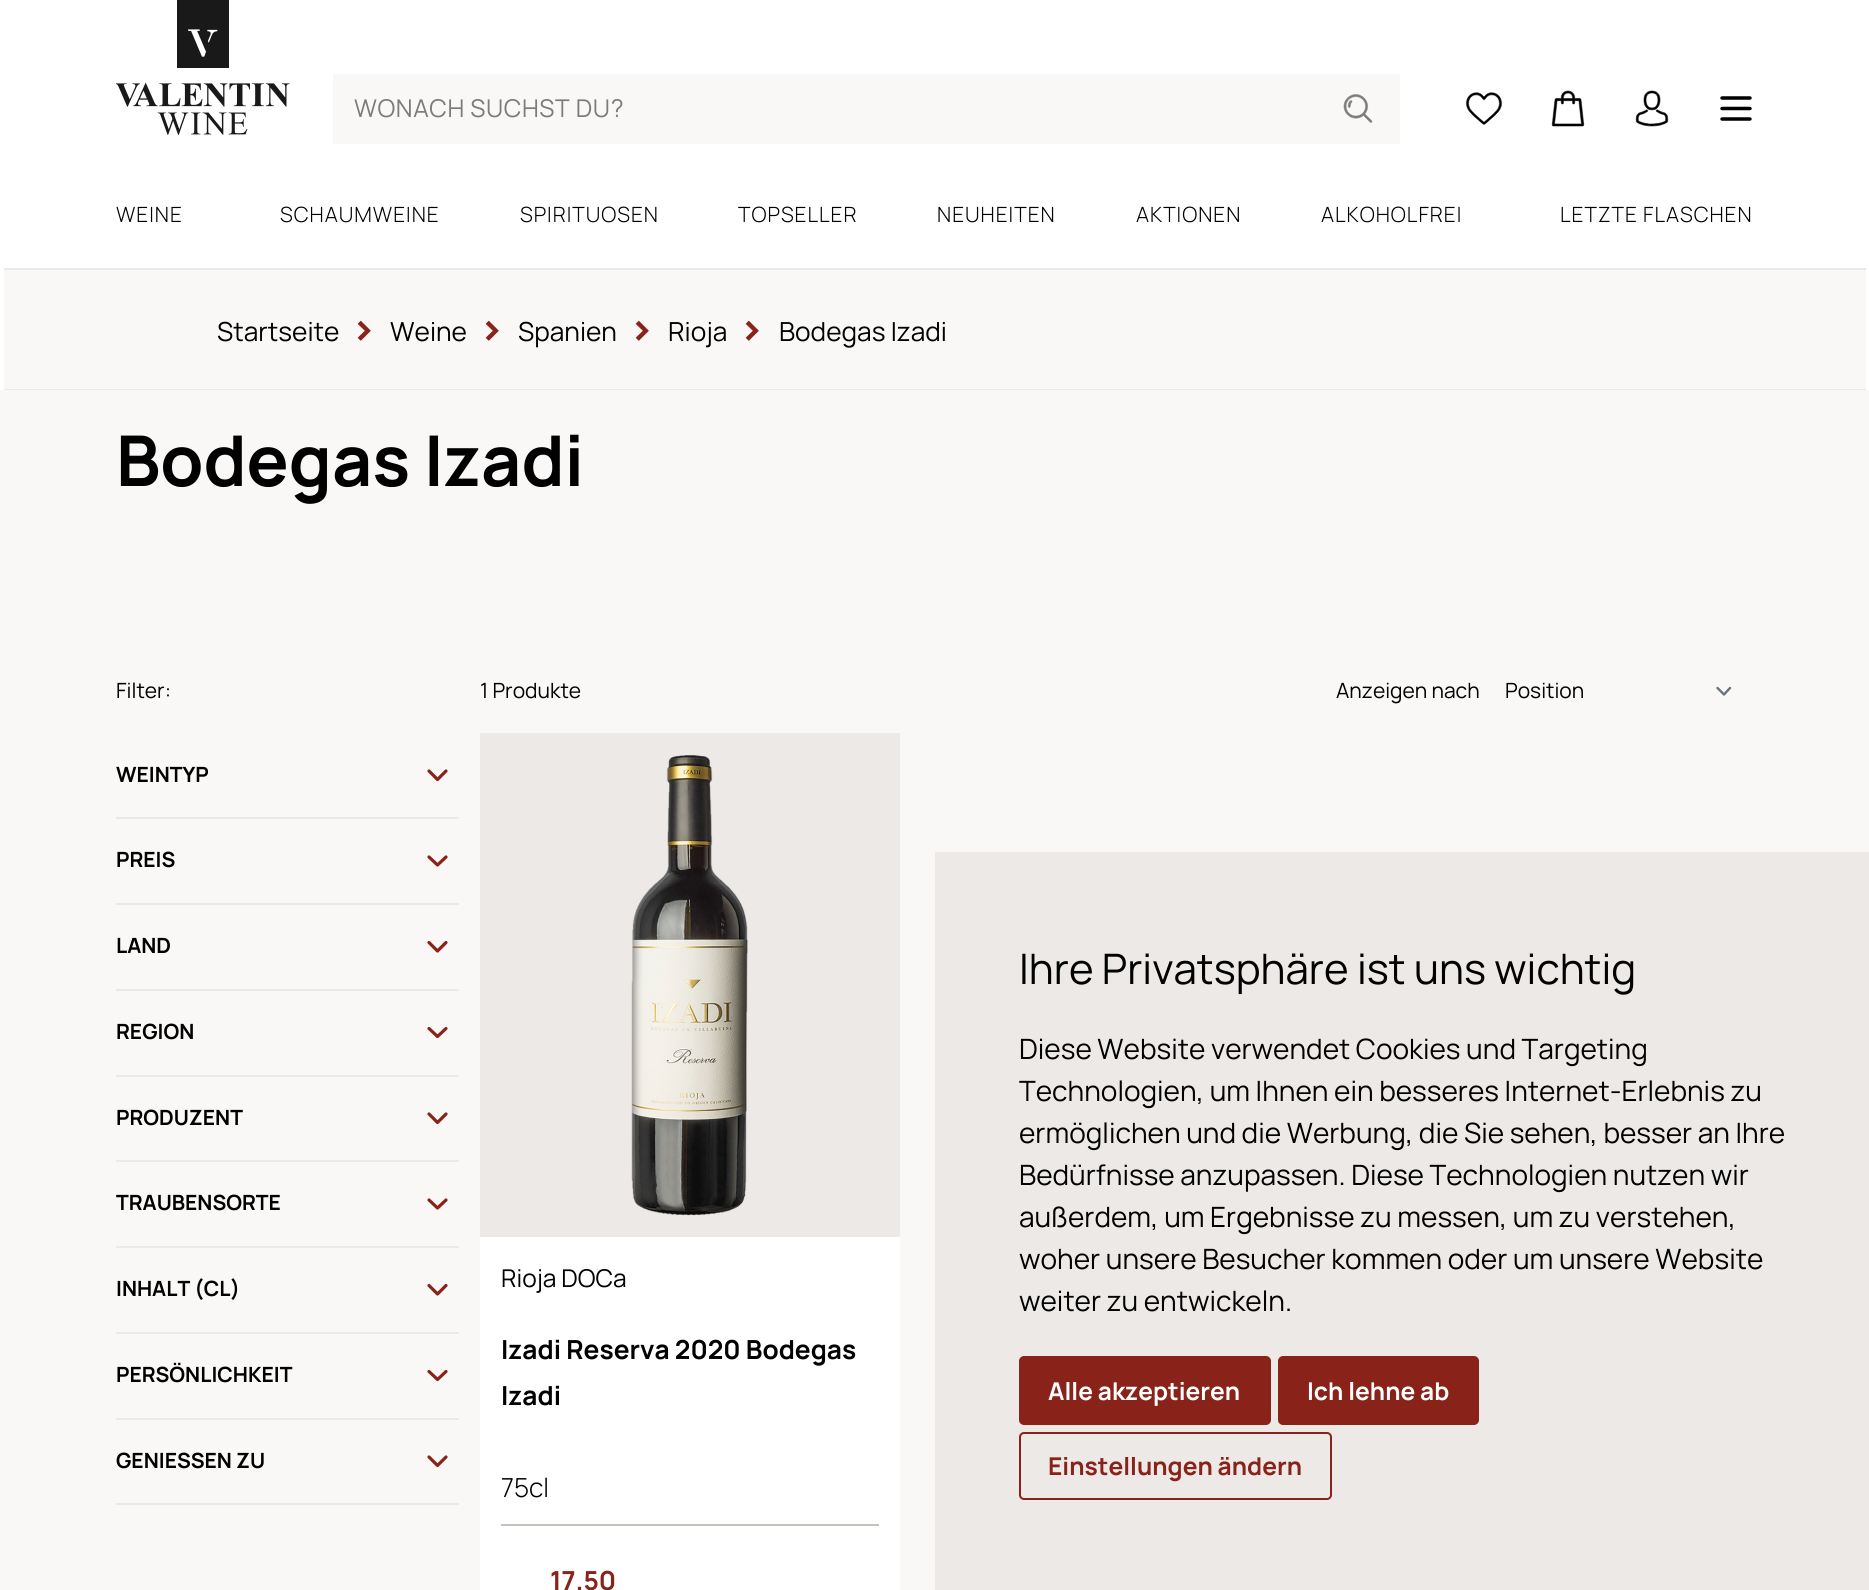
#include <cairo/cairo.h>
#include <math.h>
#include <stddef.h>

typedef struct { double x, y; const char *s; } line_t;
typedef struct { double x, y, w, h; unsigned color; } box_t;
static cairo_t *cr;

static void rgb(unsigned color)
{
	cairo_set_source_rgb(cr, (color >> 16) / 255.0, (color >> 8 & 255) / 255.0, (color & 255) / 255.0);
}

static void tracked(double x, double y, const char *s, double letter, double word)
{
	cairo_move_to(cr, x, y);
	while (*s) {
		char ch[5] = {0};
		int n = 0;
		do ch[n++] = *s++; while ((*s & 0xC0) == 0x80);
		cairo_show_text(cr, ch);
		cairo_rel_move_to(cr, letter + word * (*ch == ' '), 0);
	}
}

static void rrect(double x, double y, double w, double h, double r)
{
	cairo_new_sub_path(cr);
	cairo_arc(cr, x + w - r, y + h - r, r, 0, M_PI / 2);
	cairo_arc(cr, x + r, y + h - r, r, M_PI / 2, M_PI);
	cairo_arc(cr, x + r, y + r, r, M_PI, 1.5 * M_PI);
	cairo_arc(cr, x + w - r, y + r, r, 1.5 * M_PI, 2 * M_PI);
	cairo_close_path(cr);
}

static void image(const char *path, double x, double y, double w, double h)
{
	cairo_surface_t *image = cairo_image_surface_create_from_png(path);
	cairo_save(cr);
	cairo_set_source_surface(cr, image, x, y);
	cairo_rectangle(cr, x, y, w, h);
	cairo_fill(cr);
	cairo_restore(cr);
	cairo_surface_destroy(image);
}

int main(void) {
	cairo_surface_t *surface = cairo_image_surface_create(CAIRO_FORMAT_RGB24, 1869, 1590);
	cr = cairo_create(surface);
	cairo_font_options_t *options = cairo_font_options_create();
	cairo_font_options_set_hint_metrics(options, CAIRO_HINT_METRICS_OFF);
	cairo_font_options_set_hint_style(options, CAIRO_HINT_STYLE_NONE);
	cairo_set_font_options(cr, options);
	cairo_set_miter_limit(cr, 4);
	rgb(0xffffff);
	cairo_paint(cr);
	image("img/1.png", 116, 0, 174, 135);
	rgb(0xf9f8f7);
	cairo_rectangle(cr, 333, 74, 1067, 70);
	cairo_fill(cr);
	image("img/2.png", 1343, 94, 30, 29);
	image("img/3.png", 1466, 92, 36, 33);
	image("img/4.png", 1551, 90, 34, 37);
	image("img/5.png", 1635, 90, 34, 37);
	image("img/6.png", 1720, 96, 32, 25);
	{
		static const box_t items[] = {
			{4, 268, 1862, 2, 0xece9e7},
			{4, 270, 1862, 119, 0xf9f8f7},
			{4, 389, 1862, 1, 0xece9e7},
			{0, 390, 1869, 1200, 0xf9f8f7},
			{116, 817, 343, 2, 0xece9e7},
		};
		for (size_t i = 0; i < sizeof items / sizeof *items; i++) {
			rgb(items[i].color);
			cairo_rectangle(cr, items[i].x, items[i].y, items[i].w, items[i].h);
			cairo_fill(cr);
		}
	}
	cairo_new_path(cr);
	cairo_move_to(cr, 429, 771);
	cairo_line_to(cr, 437.5, 779.5);
	cairo_line_to(cr, 446, 771);
	rgb(0x892219);
	cairo_set_line_width(cr, 3.2);
	cairo_set_line_cap(cr, CAIRO_LINE_CAP_ROUND);
	cairo_set_line_join(cr, CAIRO_LINE_JOIN_ROUND);
	cairo_stroke(cr);
	rgb(0xece9e7);
	cairo_rectangle(cr, 116, 903, 343, 2);
	cairo_fill(cr);
	cairo_new_path(cr);
	cairo_move_to(cr, 429, 857);
	cairo_line_to(cr, 437.5, 865);
	cairo_line_to(cr, 446, 857);
	rgb(0x892219);
	cairo_stroke(cr);
	rgb(0xece9e7);
	cairo_rectangle(cr, 116, 989, 343, 2);
	cairo_fill(cr);
	cairo_new_path(cr);
	cairo_move_to(cr, 429, 942.5);
	cairo_line_to(cr, 437.5, 951);
	cairo_line_to(cr, 446, 942.5);
	rgb(0x892219);
	cairo_stroke(cr);
	rgb(0xece9e7);
	cairo_rectangle(cr, 116, 1075, 343, 2);
	cairo_fill(cr);
	cairo_new_path(cr);
	cairo_move_to(cr, 429, 1028.5);
	cairo_line_to(cr, 437.5, 1036.5);
	cairo_line_to(cr, 446, 1028.5);
	rgb(0x892219);
	cairo_stroke(cr);
	rgb(0xece9e7);
	cairo_rectangle(cr, 116, 1160, 343, 2);
	cairo_fill(cr);
	cairo_new_path(cr);
	cairo_move_to(cr, 429, 1114);
	cairo_line_to(cr, 437.5, 1122.5);
	cairo_line_to(cr, 446, 1114);
	rgb(0x892219);
	cairo_stroke(cr);
	rgb(0xece9e7);
	cairo_rectangle(cr, 116, 1246, 343, 2);
	cairo_fill(cr);
	cairo_new_path(cr);
	cairo_move_to(cr, 429, 1200);
	cairo_line_to(cr, 437.5, 1208);
	cairo_line_to(cr, 446, 1200);
	rgb(0x892219);
	cairo_stroke(cr);
	rgb(0xece9e7);
	cairo_rectangle(cr, 116, 1332, 343, 2);
	cairo_fill(cr);
	cairo_new_path(cr);
	cairo_move_to(cr, 429, 1285.5);
	cairo_line_to(cr, 437.5, 1294);
	cairo_line_to(cr, 446, 1285.5);
	rgb(0x892219);
	cairo_stroke(cr);
	rgb(0xece9e7);
	cairo_rectangle(cr, 116, 1418, 343, 2);
	cairo_fill(cr);
	cairo_new_path(cr);
	cairo_move_to(cr, 429, 1371.5);
	cairo_line_to(cr, 437.5, 1379.5);
	cairo_line_to(cr, 446, 1371.5);
	rgb(0x892219);
	cairo_stroke(cr);
	rgb(0xece9e7);
	cairo_rectangle(cr, 116, 1503, 343, 2);
	cairo_fill(cr);
	cairo_new_path(cr);
	cairo_move_to(cr, 429, 1457);
	cairo_line_to(cr, 437.5, 1465.5);
	cairo_line_to(cr, 446, 1457);
	rgb(0x892219);
	cairo_stroke(cr);
	cairo_new_path(cr);
	cairo_move_to(cr, 1717.5, 688);
	cairo_line_to(cr, 1724, 694.5);
	cairo_line_to(cr, 1730, 688);
	rgb(0x6b7280);
	cairo_set_line_width(cr, 2.4);
	cairo_stroke(cr);
	rgb(0xffffff);
	cairo_rectangle(cr, 480, 1237, 420, 353);
	cairo_fill(cr);
	rgb(0xece9e7);
	cairo_rectangle(cr, 480, 733, 420, 504);
	cairo_fill(cr);
	image("img/7.png", 631, 755, 117, 461);
	rgb(0xc6c2bb);
	cairo_rectangle(cr, 501, 1524, 378, 2);
	cairo_fill(cr);
	rgb(0xece9e7);
	cairo_rectangle(cr, 935, 852, 934, 738);
	cairo_fill(cr);
	rgb(0x892219);
	rrect(1020, 1357, 250, 67, 4);
	cairo_fill_preserve(cr);
	cairo_set_line_width(cr, 2);
	cairo_set_line_cap(cr, CAIRO_LINE_CAP_BUTT);
	cairo_set_line_join(cr, CAIRO_LINE_JOIN_MITER);
	cairo_stroke(cr);
	rrect(1279, 1357, 199, 67, 4);
	cairo_fill_preserve(cr);
	cairo_stroke(cr);
	rrect(1020, 1433, 311, 66, 4);
	cairo_stroke(cr);
	cairo_select_font_face(cr, "Manrope", CAIRO_FONT_SLANT_NORMAL, CAIRO_FONT_WEIGHT_NORMAL);
	cairo_set_font_size(cr, 24.5);
	rgb(0x7d7c7c);
	tracked(354, 117, "WONACH SUCHST DU?", 0.6, 0);
	cairo_select_font_face(cr, "Manrope Light", CAIRO_FONT_SLANT_NORMAL, CAIRO_FONT_WEIGHT_NORMAL);
	cairo_set_font_size(cr, 21);
	rgb(0x000000);
	{
		static const line_t items[] = {
			{116, 222, "WEINE"},
			{280, 222, "SCHAUMWEINE"},
			{520, 222, "SPIRITUOSEN"},
			{738, 222, "TOPSELLER"},
			{937, 222, "NEUHEITEN"},
			{1136, 222, "AKTIONEN"},
			{1321, 222, "ALKOHOLFREI"},
			{1560, 222, "LETZTE FLASCHEN"},
		};
		for (size_t i = 0; i < sizeof items / sizeof *items; i++) {
			tracked(items[i].x, items[i].y, items[i].s, 1, 0);
		}
	}
	cairo_select_font_face(cr, "Manrope", CAIRO_FONT_SLANT_NORMAL, CAIRO_FONT_WEIGHT_NORMAL);
	cairo_set_font_size(cr, 26.25);
	cairo_move_to(cr, 217, 341);
	cairo_show_text(cr, "Startseite");
	cairo_select_font_face(cr, "Manrope", CAIRO_FONT_SLANT_NORMAL, CAIRO_FONT_WEIGHT_BOLD);
	cairo_set_font_size(cr, 42);
	rgb(0x892219);
	cairo_move_to(cr, 350, 344);
	cairo_show_text(cr, ">");
	cairo_select_font_face(cr, "Manrope", CAIRO_FONT_SLANT_NORMAL, CAIRO_FONT_WEIGHT_NORMAL);
	cairo_set_font_size(cr, 26.25);
	rgb(0x000000);
	cairo_move_to(cr, 390, 341);
	cairo_show_text(cr, "Weine");
	cairo_select_font_face(cr, "Manrope", CAIRO_FONT_SLANT_NORMAL, CAIRO_FONT_WEIGHT_BOLD);
	cairo_set_font_size(cr, 42);
	rgb(0x892219);
	cairo_move_to(cr, 478, 344);
	cairo_show_text(cr, ">");
	cairo_select_font_face(cr, "Manrope", CAIRO_FONT_SLANT_NORMAL, CAIRO_FONT_WEIGHT_NORMAL);
	cairo_set_font_size(cr, 26.25);
	rgb(0x000000);
	cairo_move_to(cr, 518, 341);
	cairo_show_text(cr, "Spanien");
	cairo_select_font_face(cr, "Manrope", CAIRO_FONT_SLANT_NORMAL, CAIRO_FONT_WEIGHT_BOLD);
	cairo_set_font_size(cr, 42);
	rgb(0x892219);
	cairo_move_to(cr, 628, 344);
	cairo_show_text(cr, ">");
	cairo_select_font_face(cr, "Manrope", CAIRO_FONT_SLANT_NORMAL, CAIRO_FONT_WEIGHT_NORMAL);
	cairo_set_font_size(cr, 26.25);
	rgb(0x000000);
	cairo_move_to(cr, 668, 341);
	cairo_show_text(cr, "Rioja");
	cairo_select_font_face(cr, "Manrope", CAIRO_FONT_SLANT_NORMAL, CAIRO_FONT_WEIGHT_BOLD);
	cairo_set_font_size(cr, 42);
	rgb(0x892219);
	cairo_move_to(cr, 738, 344);
	cairo_show_text(cr, ">");
	cairo_select_font_face(cr, "Manrope", CAIRO_FONT_SLANT_NORMAL, CAIRO_FONT_WEIGHT_NORMAL);
	cairo_set_font_size(cr, 26.25);
	rgb(0x000000);
	cairo_move_to(cr, 779, 341);
	cairo_show_text(cr, "Bodegas Izadi");
	cairo_select_font_face(cr, "Manrope", CAIRO_FONT_SLANT_NORMAL, CAIRO_FONT_WEIGHT_BOLD);
	cairo_set_font_size(cr, 70);
	cairo_move_to(cr, 116, 486);
	cairo_show_text(cr, "Bodegas Izadi");
	cairo_select_font_face(cr, "Manrope", CAIRO_FONT_SLANT_NORMAL, CAIRO_FONT_WEIGHT_NORMAL);
	cairo_set_font_size(cr, 21);
	cairo_move_to(cr, 116, 698);
	cairo_show_text(cr, "Filter:");
	cairo_select_font_face(cr, "Manrope", CAIRO_FONT_SLANT_NORMAL, CAIRO_FONT_WEIGHT_BOLD);
	{
		static const line_t items[] = {
			{116, 782, "WEINTYP"},
			{116, 867, "PREIS"},
			{116, 953, "LAND"},
			{116, 1039, "REGION"},
			{116, 1125, "PRODUZENT"},
		};
		for (size_t i = 0; i < sizeof items / sizeof *items; i++) {
			cairo_move_to(cr, items[i].x, items[i].y);
			cairo_show_text(cr, items[i].s);
		}
	}
	cairo_save(cr);
	cairo_rectangle(cr, 116, 733, 343, 821);
	cairo_clip(cr);
	cairo_move_to(cr, 116, 1210);
	cairo_show_text(cr, "TRAUBENSORTE");
	cairo_restore(cr);
	{
		static const line_t items[] = {
			{116, 1296, "INHALT (CL)"},
			{116, 1382, "PERSÖNLICHKEIT"},
			{116, 1468, "GENIESSEN ZU"},
		};
		for (size_t i = 0; i < sizeof items / sizeof *items; i++) {
			cairo_move_to(cr, items[i].x, items[i].y);
			cairo_show_text(cr, items[i].s);
		}
	}
	cairo_select_font_face(cr, "Manrope", CAIRO_FONT_SLANT_NORMAL, CAIRO_FONT_WEIGHT_NORMAL);
	{
		static const line_t items[] = {
			{480, 698, "1 Produkte"},
			{1336, 698, "Anzeigen nach"},
			{1505, 698, "Position"},
		};
		for (size_t i = 0; i < sizeof items / sizeof *items; i++) {
			cairo_move_to(cr, items[i].x, items[i].y);
			cairo_show_text(cr, items[i].s);
		}
	}
	cairo_set_font_size(cr, 24.5);
	cairo_move_to(cr, 501, 1287);
	cairo_show_text(cr, "Rioja DOCa");
	cairo_select_font_face(cr, "Manrope", CAIRO_FONT_SLANT_NORMAL, CAIRO_FONT_WEIGHT_BOLD);
	cairo_set_font_size(cr, 26.25);
	cairo_move_to(cr, 501, 1359);
	cairo_show_text(cr, "Izadi Reserva 2020 Bodegas");
	cairo_move_to(cr, 501, 1405);
	cairo_show_text(cr, "Izadi");
	cairo_select_font_face(cr, "Manrope Light", CAIRO_FONT_SLANT_NORMAL, CAIRO_FONT_WEIGHT_NORMAL);
	cairo_move_to(cr, 501, 1497);
	cairo_show_text(cr, "75cl");
	cairo_select_font_face(cr, "Manrope", CAIRO_FONT_SLANT_NORMAL, CAIRO_FONT_WEIGHT_BOLD);
	rgb(0x892219);
	cairo_move_to(cr, 550, 1590);
	cairo_show_text(cr, "17.50");
	cairo_select_font_face(cr, "Manrope", CAIRO_FONT_SLANT_NORMAL, CAIRO_FONT_WEIGHT_NORMAL);
	cairo_set_font_size(cr, 42);
	rgb(0x000000);
	cairo_move_to(cr, 1019, 984);
	cairo_show_text(cr, "Ihre Privatsphäre ist uns wichtig");
	cairo_set_font_size(cr, 28);
	{
		static const line_t items[] = {
			{1019, 1059, "Diese Website verwendet Cookies und Targeting"},
			{1019, 1101, "Technologien, um Ihnen ein besseres Internet-Erlebnis zu"},
			{1019, 1143, "ermöglichen und die Werbung, die Sie sehen, besser an Ihre"},
			{1019, 1185, "Bedürfnisse anzupassen. Diese Technologien nutzen wir"},
			{1019, 1227, "außerdem, um Ergebnisse zu messen, um zu verstehen,"},
			{1019, 1269, "woher unsere Besucher kommen oder um unsere Website"},
			{1019, 1311, "weiter zu entwickeln."},
		};
		for (size_t i = 0; i < sizeof items / sizeof *items; i++) {
			cairo_move_to(cr, items[i].x, items[i].y);
			cairo_show_text(cr, items[i].s);
		}
	}
	cairo_select_font_face(cr, "Manrope", CAIRO_FONT_SLANT_NORMAL, CAIRO_FONT_WEIGHT_BOLD);
	cairo_set_font_size(cr, 24.5);
	rgb(0xffffff);
	cairo_move_to(cr, 1048, 1400);
	cairo_show_text(cr, "Alle akzeptieren");
	cairo_move_to(cr, 1307, 1400);
	cairo_show_text(cr, "Ich lehne ab");
	rgb(0x892219);
	cairo_move_to(cr, 1048, 1475);
	cairo_show_text(cr, "Einstellungen ändern");
	cairo_surface_write_to_png(surface, "page.png");
	cairo_font_options_destroy(options);
	cairo_destroy(cr);
	cairo_surface_destroy(surface);
	return 0;
}
